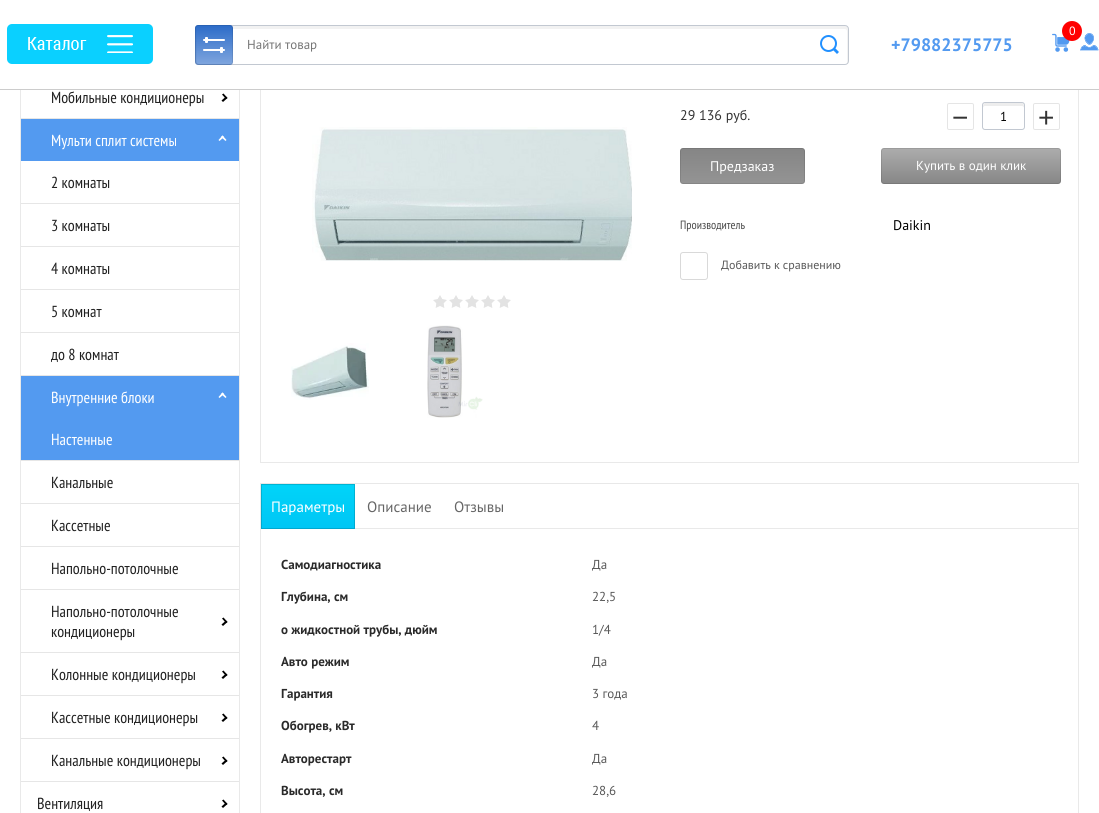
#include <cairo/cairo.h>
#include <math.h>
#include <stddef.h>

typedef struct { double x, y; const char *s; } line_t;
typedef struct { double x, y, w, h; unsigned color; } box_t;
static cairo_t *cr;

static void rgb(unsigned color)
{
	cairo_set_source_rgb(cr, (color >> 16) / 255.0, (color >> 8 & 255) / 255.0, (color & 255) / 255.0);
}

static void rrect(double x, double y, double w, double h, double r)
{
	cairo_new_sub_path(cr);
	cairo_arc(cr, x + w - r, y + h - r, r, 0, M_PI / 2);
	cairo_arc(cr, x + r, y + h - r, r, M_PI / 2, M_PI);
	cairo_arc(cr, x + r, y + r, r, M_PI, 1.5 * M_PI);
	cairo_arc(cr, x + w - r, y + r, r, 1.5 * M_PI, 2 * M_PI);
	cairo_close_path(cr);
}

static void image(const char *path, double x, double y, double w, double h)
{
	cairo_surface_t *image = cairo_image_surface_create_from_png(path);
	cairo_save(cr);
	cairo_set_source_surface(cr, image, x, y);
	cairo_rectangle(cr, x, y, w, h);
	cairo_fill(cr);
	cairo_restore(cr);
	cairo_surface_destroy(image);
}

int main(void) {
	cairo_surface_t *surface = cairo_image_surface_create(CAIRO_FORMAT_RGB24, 1099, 813);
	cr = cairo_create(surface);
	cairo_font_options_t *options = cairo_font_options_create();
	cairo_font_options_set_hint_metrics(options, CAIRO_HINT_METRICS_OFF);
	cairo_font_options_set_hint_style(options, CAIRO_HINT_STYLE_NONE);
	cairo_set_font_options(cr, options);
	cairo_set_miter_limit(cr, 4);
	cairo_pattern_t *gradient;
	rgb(0xffffff);
	cairo_paint(cr);
	cairo_rectangle(cr, 20.5, -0.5, 219, 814);
	rgb(0xe9e9e9);
	cairo_set_line_width(cr, 1);
	cairo_stroke(cr);
	cairo_rectangle(cr, 260.5, 81.5, 818, 381);
	cairo_stroke(cr);
	rgb(0xffffff);
	cairo_rectangle(cr, 20, 0, 1059, 89);
	cairo_fill(cr);
	image("img/1.png", 7, 24, 146, 40);
	rgb(0xf2f2f2);
	cairo_new_path(cr);
	cairo_move_to(cr, 199, 29);
	cairo_line_to(cr, 845, 29);
	cairo_curve_to(cr, 846, 29, 847, 30, 847, 31);
	cairo_line_to(cr, 847, 63);
	cairo_curve_to(cr, 848, 63, 848, 62, 848, 61);
	cairo_line_to(cr, 848, 29);
	cairo_curve_to(cr, 848, 27, 847, 26, 845, 26);
	cairo_line_to(cr, 199, 26);
	cairo_curve_to(cr, 197, 26, 196, 27, 196, 29);
	cairo_line_to(cr, 196, 61);
	cairo_curve_to(cr, 196, 62, 196, 63, 197, 63);
	cairo_line_to(cr, 197, 36);
	cairo_curve_to(cr, 197, 36, 196, 29, 199, 29);
	cairo_close_path(cr);
	cairo_fill(cr);
	rrect(195.5, 25.5, 653, 39, 3.5);
	rgb(0xc2c8d1);
	cairo_stroke(cr);
	gradient = cairo_pattern_create_linear(214, 25, 214, 65);
	cairo_pattern_add_color_stop_rgba(gradient, 0, 0.169, 0.42, 0.784, 1);
	cairo_pattern_add_color_stop_rgba(gradient, 1, 0.169, 0.42, 0.784, 0.6);
	cairo_set_source(cr, gradient);
	cairo_pattern_destroy(gradient);
	rrect(195, 25, 38, 40, 3);
	cairo_fill(cr);
	rrect(195.5, 25.5, 37, 39, 2.5);
	cairo_set_source_rgba(cr, 0, 0, 0, 0.1);
	cairo_stroke(cr);
	image("img/2.png", 203, 37, 22, 16);
	image("img/3.png", 820, 35, 19, 19);
	image("img/4.png", 1052, 33, 18, 19);
	image("img/5.png", 1080, 33, 19, 18);
	rgb(0xff0000);
	cairo_arc(cr, 1072, 31, 10, 0, 2 * M_PI);
	cairo_fill(cr);
	rgb(0xcccccc);
	cairo_rectangle(cr, 0, 89, 1099, 1);
	cairo_fill(cr);
	rgb(0x000000);
	cairo_new_path(cr);
	cairo_move_to(cr, 227.5, 98);
	cairo_line_to(cr, 223, 102);
	cairo_line_to(cr, 221.5, 100.5);
	cairo_line_to(cr, 226, 96.5);
	cairo_close_path(cr);
	cairo_fill(cr);
	cairo_new_path(cr);
	cairo_move_to(cr, 227.5, 98);
	cairo_line_to(cr, 226, 99);
	cairo_line_to(cr, 222, 94.5);
	cairo_line_to(cr, 223.5, 93.5);
	cairo_close_path(cr);
	cairo_fill(cr);
	rgb(0xe6e6e6);
	cairo_rectangle(cr, 21, 118, 218, 1);
	cairo_fill(cr);
	rgb(0x539af0);
	cairo_rectangle(cr, 21, 119, 218, 42);
	cairo_fill(cr);
	rgb(0xffffff);
	cairo_new_path(cr);
	cairo_move_to(cr, 222.5, 135.5);
	cairo_line_to(cr, 226.5, 140);
	cairo_line_to(cr, 225.5, 141);
	cairo_line_to(cr, 221, 137);
	cairo_close_path(cr);
	cairo_fill(cr);
	cairo_new_path(cr);
	cairo_move_to(cr, 222.5, 135.5);
	cairo_line_to(cr, 224, 137);
	cairo_line_to(cr, 219.5, 141);
	cairo_line_to(cr, 218.5, 140);
	cairo_close_path(cr);
	cairo_fill(cr);
	{
		static const box_t items[] = {
			{21, 203, 218, 1, 0xe6e6e6},
			{21, 246, 218, 1, 0xe6e6e6},
			{21, 289, 218, 1, 0xe6e6e6},
			{21, 332, 218, 1, 0xe6e6e6},
			{21, 375, 218, 1, 0xe6e6e6},
			{21, 376, 218, 84, 0x539af0},
		};
		for (size_t i = 0; i < sizeof items / sizeof *items; i++) {
			rgb(items[i].color);
			cairo_rectangle(cr, items[i].x, items[i].y, items[i].w, items[i].h);
			cairo_fill(cr);
		}
	}
	rgb(0xffffff);
	cairo_new_path(cr);
	cairo_move_to(cr, 222.5, 392.5);
	cairo_line_to(cr, 226.5, 397);
	cairo_line_to(cr, 225.5, 398);
	cairo_line_to(cr, 221, 394);
	cairo_close_path(cr);
	cairo_fill(cr);
	cairo_new_path(cr);
	cairo_move_to(cr, 222.5, 392.5);
	cairo_line_to(cr, 224, 394);
	cairo_line_to(cr, 219.5, 398);
	cairo_line_to(cr, 218.5, 397);
	cairo_close_path(cr);
	cairo_fill(cr);
	{
		static const box_t items[] = {
			{21, 460, 218, 1, 0xe6e6e6},
			{21, 503, 218, 1, 0xe6e6e6},
			{21, 546, 218, 1, 0xe6e6e6},
			{21, 589, 218, 1, 0xe6e6e6},
		};
		for (size_t i = 0; i < sizeof items / sizeof *items; i++) {
			rgb(items[i].color);
			cairo_rectangle(cr, items[i].x, items[i].y, items[i].w, items[i].h);
			cairo_fill(cr);
		}
	}
	rgb(0x000000);
	cairo_new_path(cr);
	cairo_move_to(cr, 227.5, 622);
	cairo_line_to(cr, 223, 626);
	cairo_line_to(cr, 221.5, 624.5);
	cairo_line_to(cr, 226, 620.5);
	cairo_close_path(cr);
	cairo_fill(cr);
	cairo_new_path(cr);
	cairo_move_to(cr, 227.5, 622);
	cairo_line_to(cr, 226, 623);
	cairo_line_to(cr, 222, 618.5);
	cairo_line_to(cr, 223.5, 617.5);
	cairo_close_path(cr);
	cairo_fill(cr);
	rgb(0xe6e6e6);
	cairo_rectangle(cr, 21, 652, 218, 1);
	cairo_fill(cr);
	rgb(0x000000);
	cairo_new_path(cr);
	cairo_move_to(cr, 227.5, 675);
	cairo_line_to(cr, 223, 679);
	cairo_line_to(cr, 221.5, 677.5);
	cairo_line_to(cr, 226, 673.5);
	cairo_close_path(cr);
	cairo_fill(cr);
	cairo_new_path(cr);
	cairo_move_to(cr, 227.5, 675);
	cairo_line_to(cr, 226, 676);
	cairo_line_to(cr, 222, 671.5);
	cairo_line_to(cr, 223.5, 670.5);
	cairo_close_path(cr);
	cairo_fill(cr);
	rgb(0xe6e6e6);
	cairo_rectangle(cr, 21, 695, 218, 1);
	cairo_fill(cr);
	rgb(0x000000);
	cairo_new_path(cr);
	cairo_move_to(cr, 227.5, 718);
	cairo_line_to(cr, 223, 722);
	cairo_line_to(cr, 221.5, 720.5);
	cairo_line_to(cr, 226, 716.5);
	cairo_close_path(cr);
	cairo_fill(cr);
	cairo_new_path(cr);
	cairo_move_to(cr, 227.5, 718);
	cairo_line_to(cr, 226, 719);
	cairo_line_to(cr, 222, 714.5);
	cairo_line_to(cr, 223.5, 713.5);
	cairo_close_path(cr);
	cairo_fill(cr);
	rgb(0xe6e6e6);
	cairo_rectangle(cr, 21, 738, 218, 1);
	cairo_fill(cr);
	rgb(0x000000);
	cairo_new_path(cr);
	cairo_move_to(cr, 227.5, 761);
	cairo_line_to(cr, 223, 765);
	cairo_line_to(cr, 221.5, 763.5);
	cairo_line_to(cr, 226, 759.5);
	cairo_close_path(cr);
	cairo_fill(cr);
	cairo_new_path(cr);
	cairo_move_to(cr, 227.5, 761);
	cairo_line_to(cr, 226, 762);
	cairo_line_to(cr, 222, 757.5);
	cairo_line_to(cr, 223.5, 756.5);
	cairo_close_path(cr);
	cairo_fill(cr);
	rgb(0xe6e6e6);
	cairo_rectangle(cr, 21, 781, 218, 1);
	cairo_fill(cr);
	rgb(0x000000);
	cairo_new_path(cr);
	cairo_move_to(cr, 227.5, 804);
	cairo_line_to(cr, 223, 808);
	cairo_line_to(cr, 221.5, 806.5);
	cairo_line_to(cr, 226, 802.5);
	cairo_close_path(cr);
	cairo_fill(cr);
	cairo_new_path(cr);
	cairo_move_to(cr, 227.5, 804);
	cairo_line_to(cr, 226, 805);
	cairo_line_to(cr, 222, 800.5);
	cairo_line_to(cr, 223.5, 799.5);
	cairo_close_path(cr);
	cairo_fill(cr);
	image("img/6.png", 312, 127, 320, 134);
	image("img/7.png", 433, 295, 78, 13);
	image("img/8.png", 291, 343, 78, 57);
	image("img/9.png", 427, 325, 56, 93);
	rrect(947.5, 103.5, 26, 26, 1.5);
	rgb(0xe5e5e5);
	cairo_stroke(cr);
	rgb(0xededed);
	cairo_new_path(cr);
	cairo_move_to(cr, 985, 106);
	cairo_line_to(cr, 1022, 106);
	cairo_curve_to(cr, 1023, 106, 1024, 107, 1024, 108);
	cairo_curve_to(cr, 1024, 102, 1023, 103, 1016, 103);
	cairo_line_to(cr, 991, 103);
	cairo_curve_to(cr, 984, 103, 983, 102, 983, 108);
	cairo_curve_to(cr, 983, 107, 984, 106, 985, 106);
	cairo_close_path(cr);
	cairo_fill(cr);
	rrect(982.5, 102.5, 42, 27, 2.5);
	rgb(0xc2c8d1);
	cairo_stroke(cr);
	rrect(1033.5, 103.5, 26, 26, 1.5);
	rgb(0xe5e5e5);
	cairo_stroke(cr);
	gradient = cairo_pattern_create_linear(743, 148, 743, 184);
	cairo_pattern_add_color_stop_rgba(gradient, 0, 0.522, 0.522, 0.522, 1);
	cairo_pattern_add_color_stop_rgba(gradient, 1, 0.58, 0.58, 0.58, 1);
	cairo_set_source(cr, gradient);
	cairo_pattern_destroy(gradient);
	rrect(680, 148, 125, 36, 3);
	cairo_fill(cr);
	rrect(680.5, 148.5, 124, 35, 2.5);
	cairo_set_source_rgba(cr, 0, 0, 0, 0.1);
	cairo_stroke(cr);
	gradient = cairo_pattern_create_linear(971, 148, 971, 184);
	cairo_pattern_add_color_stop_rgba(gradient, 0, 0.678, 0.678, 0.678, 1);
	cairo_pattern_add_color_stop_rgba(gradient, 1, 0.525, 0.525, 0.525, 1);
	cairo_set_source(cr, gradient);
	cairo_pattern_destroy(gradient);
	rrect(881, 148, 180, 36, 3);
	cairo_fill(cr);
	rrect(881.5, 148.5, 179, 35, 2.5);
	cairo_set_source_rgba(cr, 0, 0, 0, 0.1);
	cairo_stroke(cr);
	rrect(680.5, 252.5, 27, 27, 2.5);
	rgb(0xd9d9d9);
	cairo_stroke(cr);
	rgb(0xe8e8e8);
	cairo_new_path(cr);
	cairo_move_to(cr, 260, 483);
	cairo_line_to(cr, 1079, 483);
	cairo_line_to(cr, 1078, 484);
	cairo_line_to(cr, 261, 484);
	cairo_close_path(cr);
	cairo_fill(cr);
	cairo_set_source_rgba(cr, 0, 0, 0, 0.09);
	cairo_new_path(cr);
	cairo_move_to(cr, 1079, 483);
	cairo_line_to(cr, 1079, 529);
	cairo_line_to(cr, 1078, 529);
	cairo_line_to(cr, 1078, 484);
	cairo_close_path(cr);
	cairo_fill(cr);
	cairo_new_path(cr);
	cairo_move_to(cr, 260, 529);
	cairo_line_to(cr, 260, 483);
	cairo_line_to(cr, 261, 484);
	cairo_line_to(cr, 261, 529);
	cairo_close_path(cr);
	cairo_fill(cr);
	cairo_rectangle(cr, 260.5, 528.5, 818, 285);
	rgb(0xe9e9e9);
	cairo_stroke(cr);
	gradient = cairo_pattern_create_linear(308, 484, 308, 529);
	cairo_pattern_add_color_stop_rgba(gradient, 0, 0, 0.831, 0.973, 1);
	cairo_pattern_add_color_stop_rgba(gradient, 1, 0, 0.776, 0.961, 1);
	cairo_set_source(cr, gradient);
	cairo_pattern_destroy(gradient);
	cairo_rectangle(cr, 261, 484, 94, 45);
	cairo_fill(cr);
	cairo_rectangle(cr, 261.5, 484.5, 93, 44);
	cairo_set_source_rgba(cr, 0, 0, 0, 0.15);
	cairo_stroke(cr);
	cairo_select_font_face(cr, "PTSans", CAIRO_FONT_SLANT_NORMAL, CAIRO_FONT_WEIGHT_NORMAL);
	cairo_set_font_size(cr, 13);
	rgb(0x757575);
	cairo_move_to(cr, 247, 49);
	cairo_show_text(cr, "Найти товар");
	cairo_set_font_size(cr, 12);
	rgb(0xffffff);
	cairo_move_to(cr, 1069, 35);
	cairo_show_text(cr, "0");
	cairo_select_font_face(cr, "PTSans", CAIRO_FONT_SLANT_NORMAL, CAIRO_FONT_WEIGHT_BOLD);
	cairo_set_font_size(cr, 18);
	rgb(0x539af0);
	cairo_move_to(cr, 891, 51);
	cairo_show_text(cr, "+79882375775");
	cairo_select_font_face(cr, "PT Sans Narrow", CAIRO_FONT_SLANT_NORMAL, CAIRO_FONT_WEIGHT_NORMAL);
	cairo_set_font_size(cr, 16);
	rgb(0x212121);
	cairo_move_to(cr, 51, 103);
	cairo_show_text(cr, "Мобильные кондиционеры");
	rgb(0xffffff);
	cairo_move_to(cr, 51, 146);
	cairo_show_text(cr, "Мульти сплит системы");
	rgb(0x212121);
	{
		static const line_t items[] = {
			{51, 188, "2 комнаты"},
			{51, 231, "3 комнаты"},
			{51, 274, "4 комнаты"},
			{51, 317, "5 комнат"},
			{51, 360, "до 8 комнат"},
		};
		for (size_t i = 0; i < sizeof items / sizeof *items; i++) {
			cairo_move_to(cr, items[i].x, items[i].y);
			cairo_show_text(cr, items[i].s);
		}
	}
	rgb(0xffffff);
	cairo_move_to(cr, 51, 403);
	cairo_show_text(cr, "Внутренние блоки");
	cairo_move_to(cr, 51, 445);
	cairo_show_text(cr, "Настенные");
	rgb(0x212121);
	{
		static const line_t items[] = {
			{51, 488, "Канальные"},
			{51, 531, "Кассетные"},
			{51, 574, "Напольно-потолочные"},
			{51, 617, "Напольно-потолочные"},
			{51, 637, "кондиционеры"},
			{51, 680, "Колонные кондиционеры"},
			{51, 723, "Кассетные кондиционеры"},
			{51, 766, "Канальные кондиционеры"},
			{37, 809, "Вентиляция"},
		};
		for (size_t i = 0; i < sizeof items / sizeof *items; i++) {
			cairo_move_to(cr, items[i].x, items[i].y);
			cairo_show_text(cr, items[i].s);
		}
	}
	cairo_select_font_face(cr, "PTSans", CAIRO_FONT_SLANT_NORMAL, CAIRO_FONT_WEIGHT_NORMAL);
	cairo_set_font_size(cr, 14);
	rgb(0x333333);
	cairo_move_to(cr, 680, 120);
	cairo_show_text(cr, "29 136 руб.");
	cairo_select_font_face(cr, "Liberation Sans", CAIRO_FONT_SLANT_NORMAL, CAIRO_FONT_WEIGHT_NORMAL);
	cairo_set_font_size(cr, 28);
	cairo_move_to(cr, 952, 127);
	cairo_show_text(cr, "−");
	cairo_select_font_face(cr, "PTSans", CAIRO_FONT_SLANT_NORMAL, CAIRO_FONT_WEIGHT_NORMAL);
	cairo_set_font_size(cr, 13);
	rgb(0x000000);
	cairo_move_to(cr, 1000, 121);
	cairo_show_text(cr, "1");
	cairo_select_font_face(cr, "Liberation Sans", CAIRO_FONT_SLANT_NORMAL, CAIRO_FONT_WEIGHT_NORMAL);
	cairo_set_font_size(cr, 28);
	rgb(0x333333);
	cairo_move_to(cr, 1038, 127);
	cairo_show_text(cr, "+");
	cairo_select_font_face(cr, "PTSans", CAIRO_FONT_SLANT_NORMAL, CAIRO_FONT_WEIGHT_NORMAL);
	cairo_set_font_size(cr, 14);
	rgb(0xffffff);
	cairo_move_to(cr, 710, 171);
	cairo_show_text(cr, "Предзаказ");
	cairo_set_font_size(cr, 13);
	cairo_move_to(cr, 916, 170);
	cairo_show_text(cr, "Купить в один клик");
	cairo_select_font_face(cr, "PT Sans Narrow", CAIRO_FONT_SLANT_NORMAL, CAIRO_FONT_WEIGHT_NORMAL);
	cairo_set_font_size(cr, 12);
	rgb(0x4a4a4a);
	cairo_move_to(cr, 680, 229);
	cairo_show_text(cr, "Производитель");
	cairo_select_font_face(cr, "PTSans", CAIRO_FONT_SLANT_NORMAL, CAIRO_FONT_WEIGHT_NORMAL);
	cairo_set_font_size(cr, 14);
	rgb(0x000000);
	cairo_move_to(cr, 893, 230);
	cairo_show_text(cr, "Daikin");
	cairo_set_font_size(cr, 12);
	rgb(0x585858);
	cairo_move_to(cr, 721, 269);
	cairo_show_text(cr, "Добавить к сравнению");
	cairo_set_font_size(cr, 15);
	rgb(0xffffff);
	cairo_move_to(cr, 271, 512);
	cairo_show_text(cr, "Параметры");
	rgb(0x666666);
	cairo_move_to(cr, 367, 512);
	cairo_show_text(cr, "Описание");
	cairo_move_to(cr, 454, 512);
	cairo_show_text(cr, "Отзывы");
	cairo_select_font_face(cr, "PTSans", CAIRO_FONT_SLANT_NORMAL, CAIRO_FONT_WEIGHT_BOLD);
	cairo_set_font_size(cr, 13);
	rgb(0x2a2a2a);
	cairo_move_to(cr, 281, 569);
	cairo_show_text(cr, "Самодиагностика");
	cairo_select_font_face(cr, "PTSans", CAIRO_FONT_SLANT_NORMAL, CAIRO_FONT_WEIGHT_NORMAL);
	rgb(0x585858);
	cairo_move_to(cr, 592, 569);
	cairo_show_text(cr, "Да");
	cairo_select_font_face(cr, "PTSans", CAIRO_FONT_SLANT_NORMAL, CAIRO_FONT_WEIGHT_BOLD);
	rgb(0x2a2a2a);
	cairo_move_to(cr, 281, 601);
	cairo_show_text(cr, "Глубина, см");
	cairo_select_font_face(cr, "PTSans", CAIRO_FONT_SLANT_NORMAL, CAIRO_FONT_WEIGHT_NORMAL);
	rgb(0x585858);
	cairo_move_to(cr, 592, 601);
	cairo_show_text(cr, "22,5");
	cairo_select_font_face(cr, "PTSans", CAIRO_FONT_SLANT_NORMAL, CAIRO_FONT_WEIGHT_BOLD);
	rgb(0x2a2a2a);
	cairo_move_to(cr, 281, 634);
	cairo_show_text(cr, "o жидкостной трубы, дюйм");
	cairo_select_font_face(cr, "PTSans", CAIRO_FONT_SLANT_NORMAL, CAIRO_FONT_WEIGHT_NORMAL);
	rgb(0x585858);
	cairo_move_to(cr, 592, 634);
	cairo_show_text(cr, "1/4");
	cairo_select_font_face(cr, "PTSans", CAIRO_FONT_SLANT_NORMAL, CAIRO_FONT_WEIGHT_BOLD);
	rgb(0x2a2a2a);
	cairo_move_to(cr, 281, 666);
	cairo_show_text(cr, "Авто режим");
	cairo_select_font_face(cr, "PTSans", CAIRO_FONT_SLANT_NORMAL, CAIRO_FONT_WEIGHT_NORMAL);
	rgb(0x585858);
	cairo_move_to(cr, 592, 666);
	cairo_show_text(cr, "Да");
	cairo_select_font_face(cr, "PTSans", CAIRO_FONT_SLANT_NORMAL, CAIRO_FONT_WEIGHT_BOLD);
	rgb(0x2a2a2a);
	cairo_move_to(cr, 281, 698);
	cairo_show_text(cr, "Гарантия");
	cairo_select_font_face(cr, "PTSans", CAIRO_FONT_SLANT_NORMAL, CAIRO_FONT_WEIGHT_NORMAL);
	rgb(0x585858);
	cairo_move_to(cr, 592, 698);
	cairo_show_text(cr, "3 года");
	cairo_select_font_face(cr, "PTSans", CAIRO_FONT_SLANT_NORMAL, CAIRO_FONT_WEIGHT_BOLD);
	rgb(0x2a2a2a);
	cairo_move_to(cr, 281, 730);
	cairo_show_text(cr, "Обогрев, кВт");
	cairo_select_font_face(cr, "PTSans", CAIRO_FONT_SLANT_NORMAL, CAIRO_FONT_WEIGHT_NORMAL);
	rgb(0x585858);
	cairo_move_to(cr, 592, 730);
	cairo_show_text(cr, "4");
	cairo_select_font_face(cr, "PTSans", CAIRO_FONT_SLANT_NORMAL, CAIRO_FONT_WEIGHT_BOLD);
	rgb(0x2a2a2a);
	cairo_move_to(cr, 281, 763);
	cairo_show_text(cr, "Авторестарт");
	cairo_select_font_face(cr, "PTSans", CAIRO_FONT_SLANT_NORMAL, CAIRO_FONT_WEIGHT_NORMAL);
	rgb(0x585858);
	cairo_move_to(cr, 592, 763);
	cairo_show_text(cr, "Да");
	cairo_select_font_face(cr, "PTSans", CAIRO_FONT_SLANT_NORMAL, CAIRO_FONT_WEIGHT_BOLD);
	rgb(0x2a2a2a);
	cairo_move_to(cr, 281, 795);
	cairo_show_text(cr, "Высота, см");
	cairo_select_font_face(cr, "PTSans", CAIRO_FONT_SLANT_NORMAL, CAIRO_FONT_WEIGHT_NORMAL);
	rgb(0x585858);
	cairo_move_to(cr, 592, 795);
	cairo_show_text(cr, "28,6");
	cairo_surface_write_to_png(surface, "page.png");
	cairo_font_options_destroy(options);
	cairo_destroy(cr);
	cairo_surface_destroy(surface);
	return 0;
}
